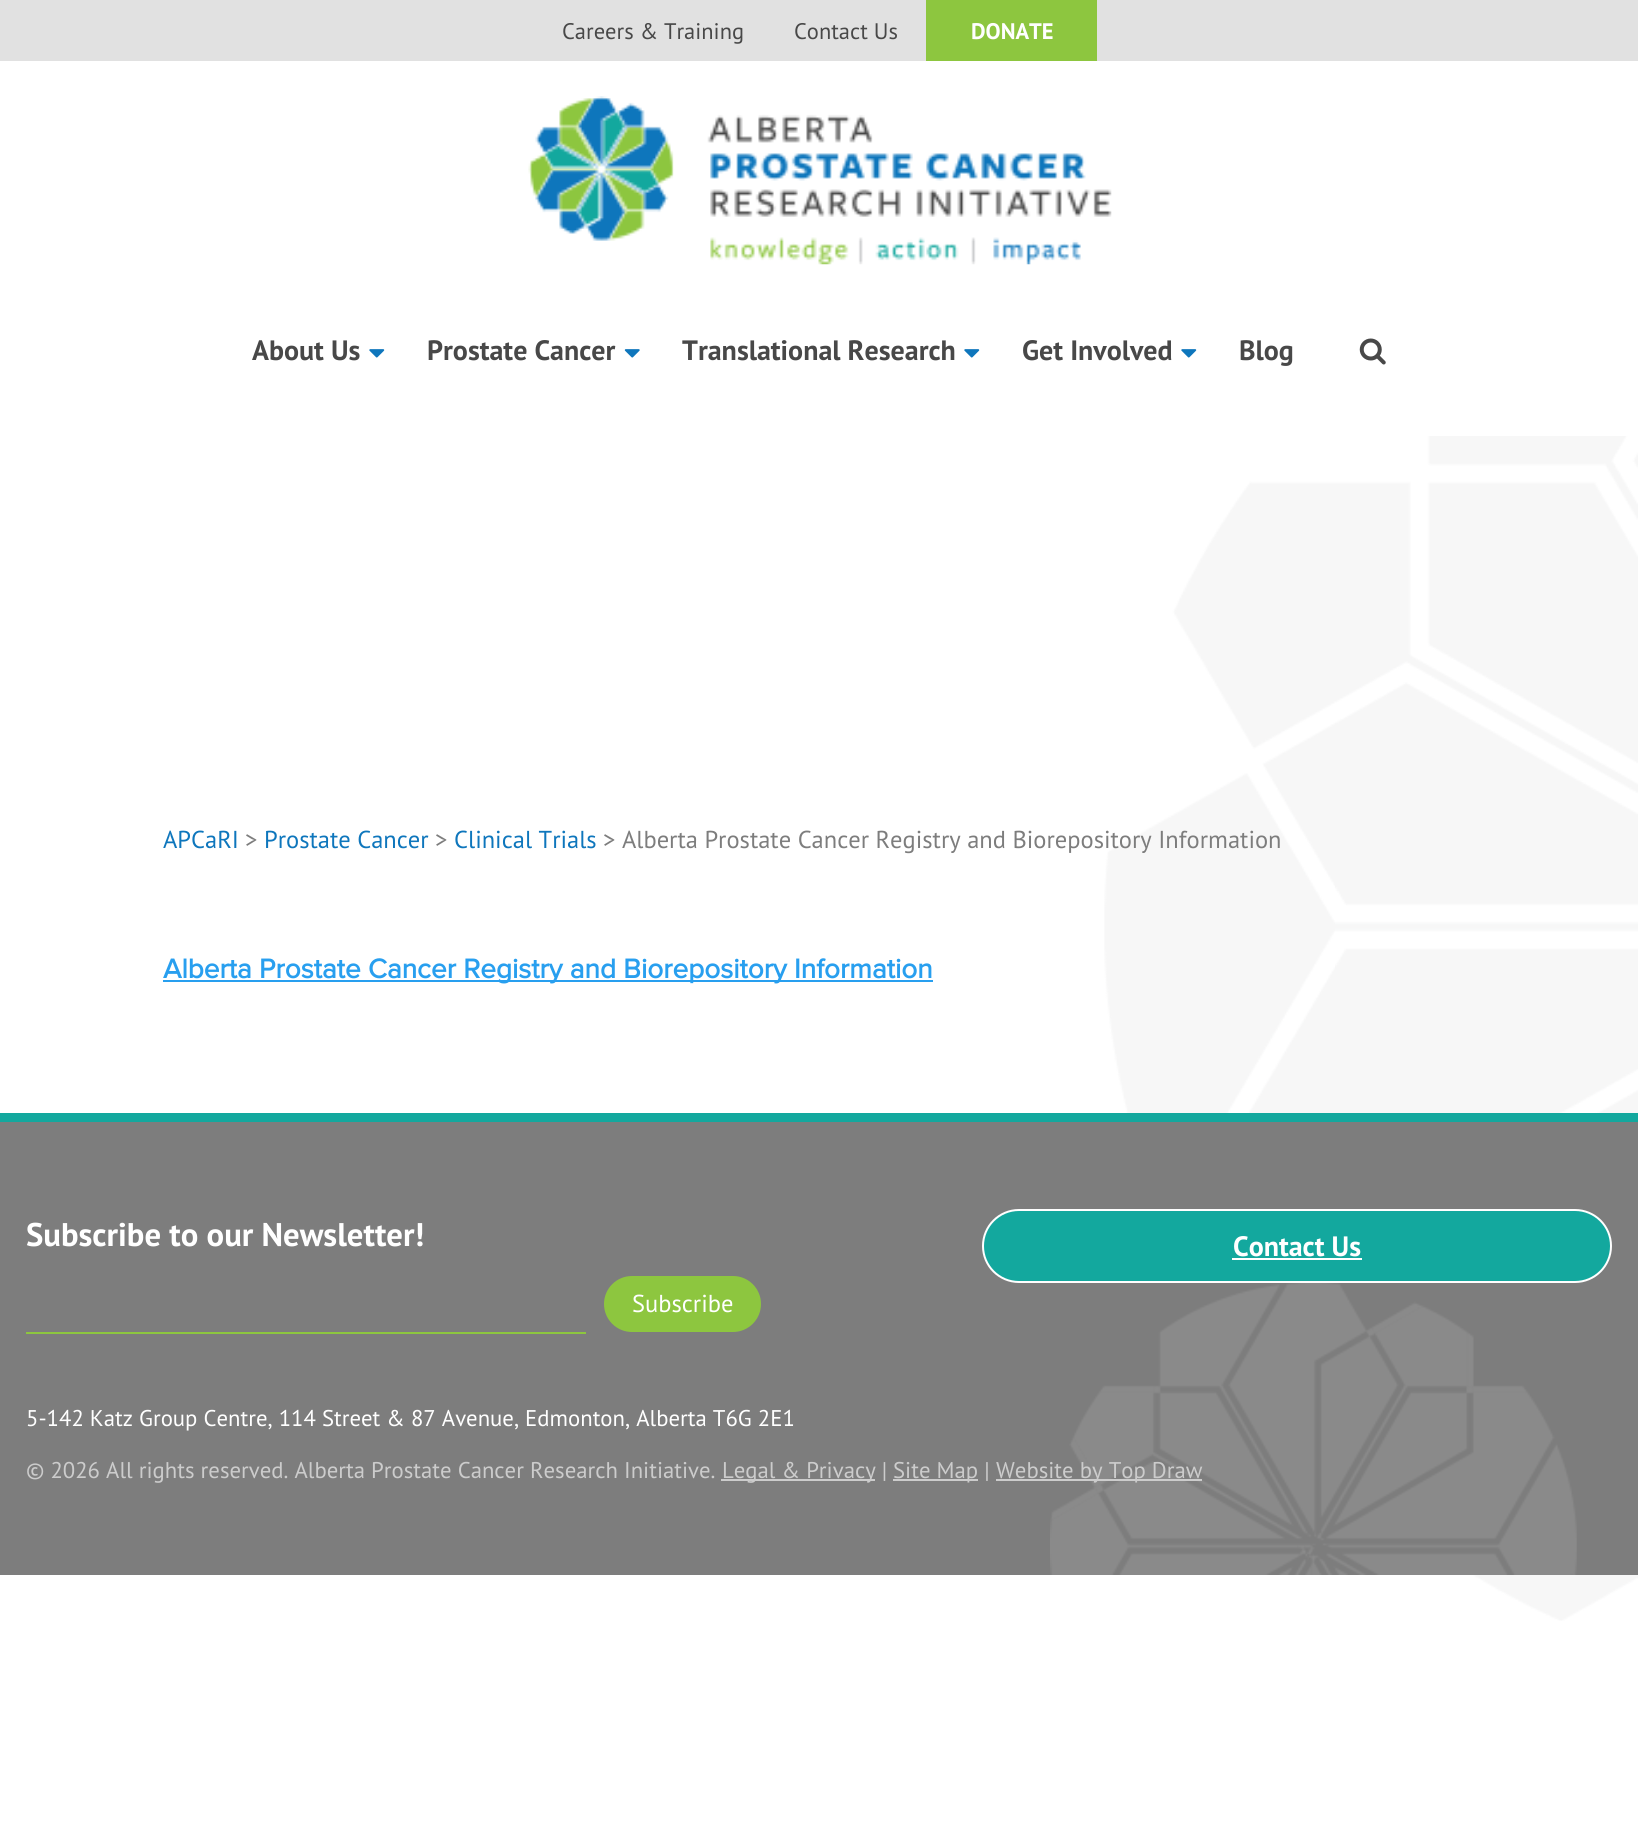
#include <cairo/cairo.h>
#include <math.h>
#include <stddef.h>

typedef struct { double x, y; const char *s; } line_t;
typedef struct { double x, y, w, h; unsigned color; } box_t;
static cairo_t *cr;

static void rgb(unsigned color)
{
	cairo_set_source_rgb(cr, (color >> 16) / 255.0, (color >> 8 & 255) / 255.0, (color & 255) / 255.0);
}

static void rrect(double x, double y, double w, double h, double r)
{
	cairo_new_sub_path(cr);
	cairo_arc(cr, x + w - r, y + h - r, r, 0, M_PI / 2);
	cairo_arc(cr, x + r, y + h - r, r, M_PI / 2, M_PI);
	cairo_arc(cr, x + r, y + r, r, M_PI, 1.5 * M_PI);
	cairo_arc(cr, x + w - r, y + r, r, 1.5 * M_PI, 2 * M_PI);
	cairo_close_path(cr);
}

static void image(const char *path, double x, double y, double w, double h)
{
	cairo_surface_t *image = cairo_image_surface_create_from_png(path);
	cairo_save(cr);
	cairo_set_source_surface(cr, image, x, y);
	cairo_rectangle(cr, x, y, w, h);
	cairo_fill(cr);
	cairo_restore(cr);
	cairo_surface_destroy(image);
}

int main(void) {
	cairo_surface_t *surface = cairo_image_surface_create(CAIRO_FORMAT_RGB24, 1638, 1825);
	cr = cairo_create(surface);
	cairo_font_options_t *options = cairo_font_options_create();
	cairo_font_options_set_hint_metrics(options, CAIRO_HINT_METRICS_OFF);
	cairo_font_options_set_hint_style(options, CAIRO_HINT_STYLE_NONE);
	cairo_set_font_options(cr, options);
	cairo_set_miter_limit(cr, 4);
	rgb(0xffffff);
	cairo_paint(cr);
	image("img/1.png", 1104, 436, 534, 1185);
	rgb(0xe1e1e1);
	cairo_rectangle(cr, 0, 0, 1638, 61);
	cairo_fill(cr);
	rgb(0x8dc63f);
	cairo_rectangle(cr, 926, 0, 171, 61);
	cairo_fill(cr);
	image("img/2.png", 528, 96, 584, 169);
	image("img/3.png", 369, 349, 16, 9);
	image("img/4.png", 624, 349, 16, 9);
	image("img/3.png", 964, 349, 16, 9);
	image("img/3.png", 1181, 349, 16, 9);
	image("img/5.png", 1359, 338, 27, 27);
	rgb(0x289fef);
	cairo_rectangle(cr, 163, 980, 770, 2);
	cairo_fill(cr);
	rgb(0x7d7d7d);
	cairo_rectangle(cr, 0, 1122, 1638, 453);
	cairo_fill(cr);
	image("img/6.png", 1050, 1283, 527, 292);
	rgb(0x13a89e);
	cairo_rectangle(cr, 0, 1113, 1638, 9);
	cairo_fill(cr);
	rgb(0x8dc63f);
	rrect(604, 1276, 157, 56, 28);
	cairo_fill(cr);
	cairo_new_path(cr);
	cairo_move_to(cr, 26, 1278);
	cairo_line_to(cr, 26, 1334);
	cairo_line_to(cr, 586, 1334);
	cairo_line_to(cr, 586, 1332);
	cairo_line_to(cr, 26, 1332);
	cairo_close_path(cr);
	cairo_fill(cr);
	rgb(0x13a89e);
	rrect(983, 1210, 628, 72, 36);
	cairo_fill_preserve(cr);
	rgb(0xffffff);
	cairo_stroke(cr);
	{
		static const box_t items[] = {
			{1232, 1258, 130, 2, 0xffffff},
			{721, 1479, 154, 2, 0xcccccc},
			{893, 1479, 85, 2, 0xcccccc},
			{996, 1479, 206, 2, 0xcccccc},
		};
		for (size_t i = 0; i < sizeof items / sizeof *items; i++) {
			rgb(items[i].color);
			cairo_rectangle(cr, items[i].x, items[i].y, items[i].w, items[i].h);
			cairo_fill(cr);
		}
	}
	cairo_select_font_face(cr, "PT Sans", CAIRO_FONT_SLANT_NORMAL, CAIRO_FONT_WEIGHT_NORMAL);
	cairo_set_font_size(cr, 22.5);
	rgb(0x484848);
	cairo_move_to(cr, 562, 39);
	cairo_show_text(cr, "Careers & Training");
	cairo_move_to(cr, 794, 39);
	cairo_show_text(cr, "Contact Us");
	cairo_select_font_face(cr, "PT Sans", CAIRO_FONT_SLANT_NORMAL, CAIRO_FONT_WEIGHT_BOLD);
	rgb(0xffffff);
	cairo_move_to(cr, 971, 39);
	cairo_show_text(cr, "DONATE");
	cairo_set_font_size(cr, 28);
	rgb(0x484848);
	{
		static const line_t items[] = {
			{252, 360, "About Us"},
			{427, 360, "Prostate Cancer"},
			{682, 360, "Translational Research"},
			{1022, 360, "Get Involved"},
			{1239, 360, "Blog"},
		};
		for (size_t i = 0; i < sizeof items / sizeof *items; i++) {
			cairo_move_to(cr, items[i].x, items[i].y);
			cairo_show_text(cr, items[i].s);
		}
	}
	cairo_select_font_face(cr, "PT Sans", CAIRO_FONT_SLANT_NORMAL, CAIRO_FONT_WEIGHT_NORMAL);
	cairo_set_font_size(cr, 24.5);
	rgb(0x0e76bc);
	cairo_move_to(cr, 163, 848);
	cairo_show_text(cr, "APCaRI");
	rgb(0x7d7d7d);
	cairo_move_to(cr, 245, 848);
	cairo_show_text(cr, ">");
	rgb(0x0e76bc);
	cairo_move_to(cr, 264, 848);
	cairo_show_text(cr, "Prostate Cancer");
	rgb(0x7d7d7d);
	cairo_move_to(cr, 435, 848);
	cairo_show_text(cr, ">");
	rgb(0x0e76bc);
	cairo_move_to(cr, 454, 848);
	cairo_show_text(cr, "Clinical Trials");
	rgb(0x7d7d7d);
	cairo_move_to(cr, 603, 848);
	cairo_show_text(cr, "> Alberta Prostate Cancer Registry and Biorepository Information");
	cairo_select_font_face(cr, "Proxima Nova", CAIRO_FONT_SLANT_NORMAL, CAIRO_FONT_WEIGHT_BOLD);
	cairo_set_font_size(cr, 28);
	rgb(0x289fef);
	cairo_move_to(cr, 163, 978);
	cairo_show_text(cr, "Alberta Prostate Cancer Registry and Biorepository Information");
	cairo_select_font_face(cr, "PT Sans", CAIRO_FONT_SLANT_NORMAL, CAIRO_FONT_WEIGHT_BOLD);
	cairo_set_font_size(cr, 32.75);
	rgb(0xffffff);
	cairo_move_to(cr, 26, 1246);
	cairo_show_text(cr, "Subscribe to our Newsletter!");
	cairo_select_font_face(cr, "PT Sans", CAIRO_FONT_SLANT_NORMAL, CAIRO_FONT_WEIGHT_NORMAL);
	cairo_set_font_size(cr, 24.5);
	cairo_move_to(cr, 632, 1312);
	cairo_show_text(cr, "Subscribe");
	cairo_select_font_face(cr, "PT Sans", CAIRO_FONT_SLANT_NORMAL, CAIRO_FONT_WEIGHT_BOLD);
	cairo_set_font_size(cr, 28);
	cairo_move_to(cr, 1233, 1256);
	cairo_show_text(cr, "Contact Us");
	cairo_select_font_face(cr, "PT Sans", CAIRO_FONT_SLANT_NORMAL, CAIRO_FONT_WEIGHT_NORMAL);
	cairo_set_font_size(cr, 22.75);
	cairo_move_to(cr, 26, 1426);
	cairo_show_text(cr, "5-142 Katz Group Centre, 114 Street & 87 Avenue, Edmonton, Alberta T6G 2E1");
	rgb(0xcccccc);
	{
		static const line_t items[] = {
			{26, 1478, "© 2026 All rights reserved. Alberta Prostate Cancer Research Initiative."},
			{722, 1478, "Legal & Privacy |"},
			{893, 1478, "Site Map |"},
			{996, 1478, "Website by Top Draw"},
		};
		for (size_t i = 0; i < sizeof items / sizeof *items; i++) {
			cairo_move_to(cr, items[i].x, items[i].y);
			cairo_show_text(cr, items[i].s);
		}
	}
	cairo_surface_write_to_png(surface, "page.png");
	cairo_font_options_destroy(options);
	cairo_destroy(cr);
	cairo_surface_destroy(surface);
	return 0;
}
